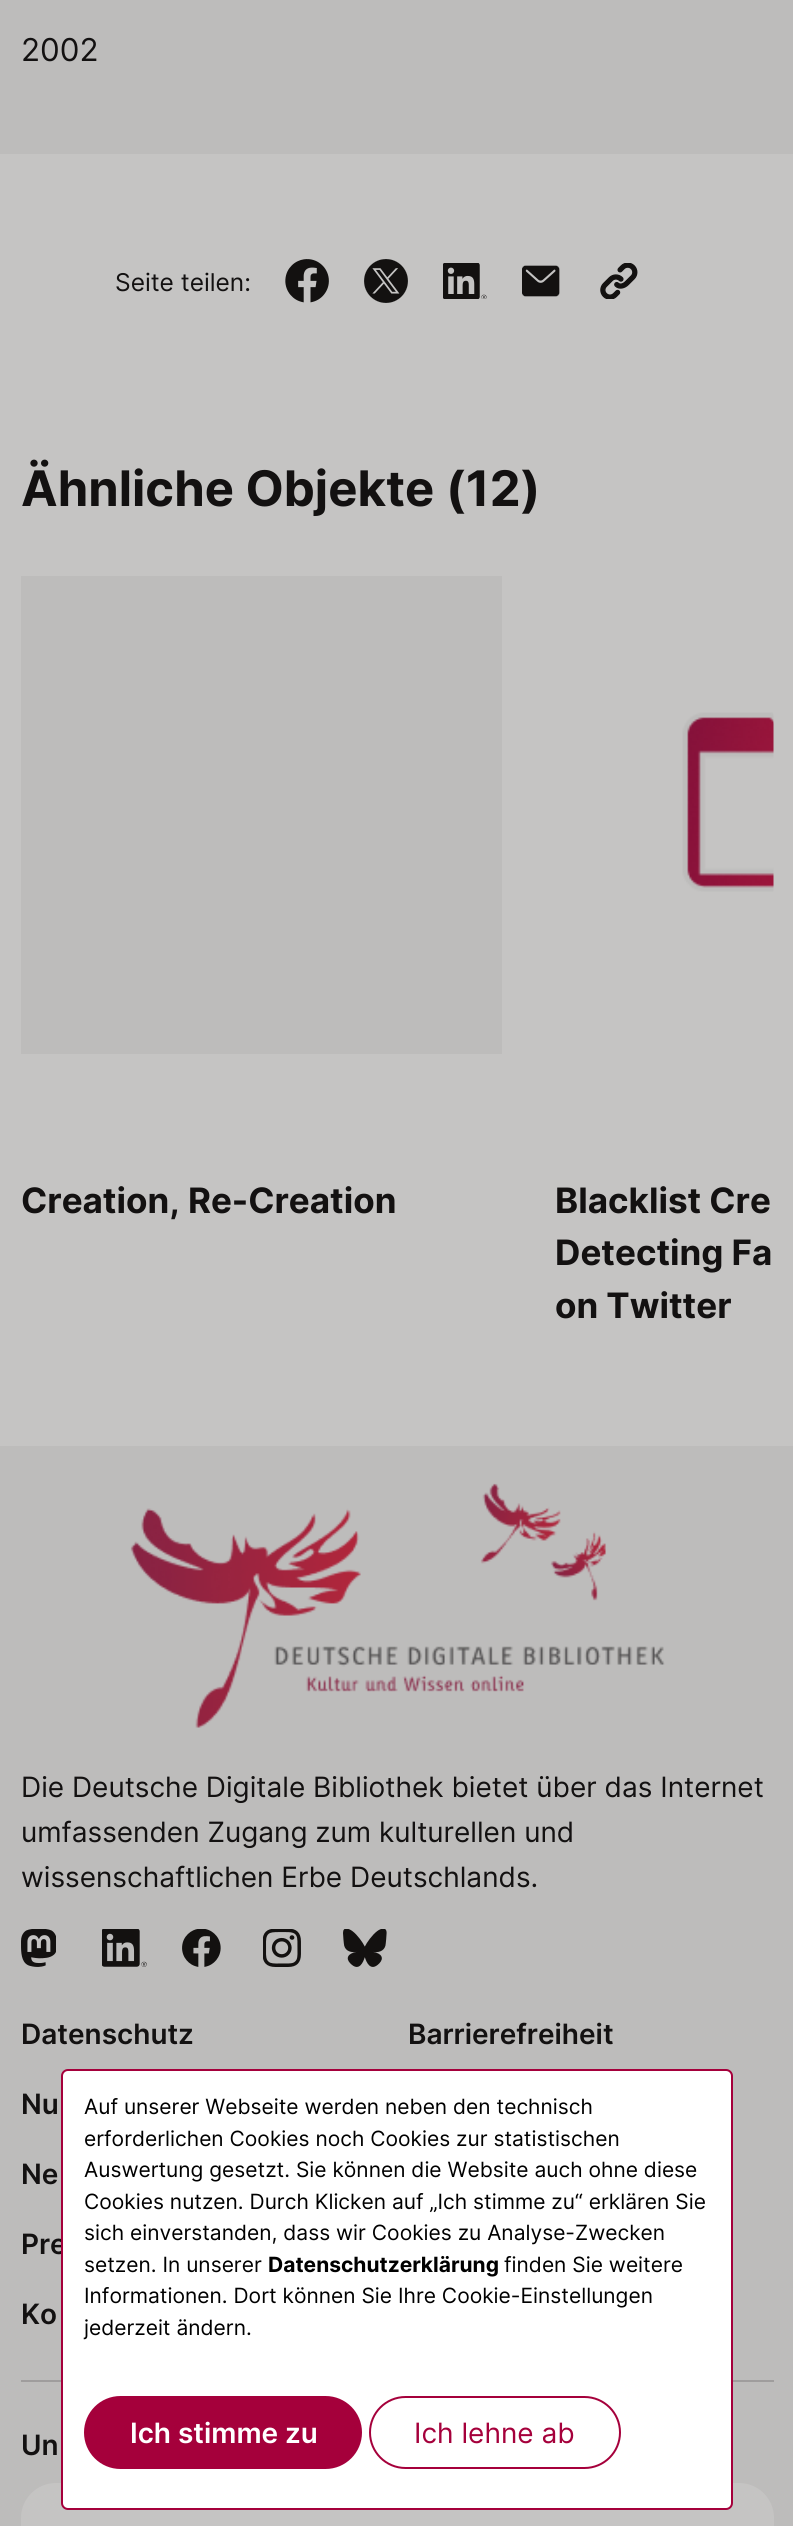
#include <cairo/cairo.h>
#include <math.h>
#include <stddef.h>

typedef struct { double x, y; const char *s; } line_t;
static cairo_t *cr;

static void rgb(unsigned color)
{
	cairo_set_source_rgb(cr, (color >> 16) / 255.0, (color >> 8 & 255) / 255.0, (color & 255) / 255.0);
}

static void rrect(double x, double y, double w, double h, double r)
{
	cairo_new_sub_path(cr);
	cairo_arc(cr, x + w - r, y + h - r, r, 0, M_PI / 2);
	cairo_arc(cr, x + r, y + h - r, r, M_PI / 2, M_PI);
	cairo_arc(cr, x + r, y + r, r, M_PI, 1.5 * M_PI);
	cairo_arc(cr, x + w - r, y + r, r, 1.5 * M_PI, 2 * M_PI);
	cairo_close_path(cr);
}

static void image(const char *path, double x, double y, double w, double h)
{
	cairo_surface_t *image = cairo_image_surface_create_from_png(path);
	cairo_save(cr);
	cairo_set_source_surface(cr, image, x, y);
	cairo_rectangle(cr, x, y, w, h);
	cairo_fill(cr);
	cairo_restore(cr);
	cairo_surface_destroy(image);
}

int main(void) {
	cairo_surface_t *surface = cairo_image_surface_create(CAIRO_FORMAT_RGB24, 793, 2526);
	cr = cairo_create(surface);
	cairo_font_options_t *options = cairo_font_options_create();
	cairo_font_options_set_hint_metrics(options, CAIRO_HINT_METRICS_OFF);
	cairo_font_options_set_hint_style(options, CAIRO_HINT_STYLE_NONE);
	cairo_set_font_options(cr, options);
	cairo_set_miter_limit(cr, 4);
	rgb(0xc5c4c3);
	cairo_paint(cr);
	rgb(0xbdbcbb);
	cairo_rectangle(cr, 0, 0, 793, 154);
	cairo_fill(cr);
	image("img/1.png", 285, 259, 44, 44);
	image("img/2.png", 364, 259, 44, 44);
	image("img/3.png", 443, 263, 44, 36);
	image("img/4.png", 522, 265, 38, 32);
	image("img/5.png", 600, 263, 38, 36);
	cairo_rectangle(cr, 21, 576, 481, 478);
	cairo_fill(cr);
	image("img/6.png", 682, 712, 92, 180);
	cairo_rectangle(cr, 0, 1446, 793, 1080);
	cairo_fill(cr);
	image("img/7.png", 130, 1483, 535, 245);
	image("img/8.png", 21, 1929, 35, 38);
	image("img/9.png", 102, 1929, 45, 38);
	image("img/10.png", 182, 1929, 39, 38);
	image("img/11.png", 263, 1929, 38, 38);
	image("img/12.png", 343, 1929, 44, 38);
	rgb(0x9f9d9d);
	cairo_rectangle(cr, 21, 2380, 753, 2);
	cairo_fill(cr);
	rgb(0xc5c4c3);
	rrect(21, 2483, 753, 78, 35);
	cairo_fill(cr);
	cairo_select_font_face(cr, "Inter", CAIRO_FONT_SLANT_NORMAL, CAIRO_FONT_WEIGHT_NORMAL);
	cairo_set_font_size(cr, 31.5);
	rgb(0x131111);
	cairo_move_to(cr, 21, 61);
	cairo_show_text(cr, "2002");
	cairo_set_font_size(cr, 24.5);
	cairo_move_to(cr, 115, 291);
	cairo_show_text(cr, "Seite teilen:");
	cairo_select_font_face(cr, "Inter", CAIRO_FONT_SLANT_NORMAL, CAIRO_FONT_WEIGHT_BOLD);
	cairo_set_font_size(cr, 49);
	cairo_move_to(cr, 21, 506);
	cairo_show_text(cr, "Ähnliche Objekte (12)");
	cairo_set_font_size(cr, 35);
	{
		static const line_t items[] = {
			{21, 1213, "Creation, Re-Creation"},
			{555, 1213, "Blacklist Cre"},
			{555, 1265, "Detecting Fa"},
			{555, 1318, "on Twitter"},
		};
		for (size_t i = 0; i < sizeof items / sizeof *items; i++) {
			cairo_move_to(cr, items[i].x, items[i].y);
			cairo_show_text(cr, items[i].s);
		}
	}
	cairo_select_font_face(cr, "Inter", CAIRO_FONT_SLANT_NORMAL, CAIRO_FONT_WEIGHT_NORMAL);
	cairo_set_font_size(cr, 28);
	{
		static const line_t items[] = {
			{21, 1797, "Die Deutsche Digitale Bibliothek bietet über das Internet"},
			{21, 1842, "umfassenden Zugang zum kulturellen und"},
			{21, 1887, "wissenschaftlichen Erbe Deutschlands."},
		};
		for (size_t i = 0; i < sizeof items / sizeof *items; i++) {
			cairo_move_to(cr, items[i].x, items[i].y);
			cairo_show_text(cr, items[i].s);
		}
	}
	cairo_select_font_face(cr, "Inter SemiBold", CAIRO_FONT_SLANT_NORMAL, CAIRO_FONT_WEIGHT_NORMAL);
	{
		static const line_t items[] = {
			{21, 2044, "Datenschutz"},
			{408, 2044, "Barrierefreiheit"},
			{21, 2114, "Nu"},
			{21, 2184, "Ne"},
			{21, 2254, "Pre"},
			{21, 2324, "Ko"},
			{21, 2455, "Un"},
		};
		for (size_t i = 0; i < sizeof items / sizeof *items; i++) {
			cairo_move_to(cr, items[i].x, items[i].y);
			cairo_show_text(cr, items[i].s);
		}
	}
	rgb(0xffffff);
	rrect(62, 2070, 670, 439, 6);
	cairo_fill_preserve(cr);
	rgb(0xa5003b);
	cairo_stroke(cr);
	cairo_select_font_face(cr, "Inter", CAIRO_FONT_SLANT_NORMAL, CAIRO_FONT_WEIGHT_NORMAL);
	cairo_set_font_size(cr, 21);
	rgb(0x000000);
	{
		static const line_t items[] = {
			{84, 2114, "Auf unserer Webseite werden neben den technisch"},
			{84, 2146, "erforderlichen Cookies noch Cookies zur statistischen"},
			{84, 2177, "Auswertung gesetzt. Sie können die Website auch ohne diese"},
			{84, 2209, "Cookies nutzen. Durch Klicken auf „Ich stimme zu“ erklären Sie"},
			{84, 2240, "sich einverstanden, dass wir Cookies zu Analyse-Zwecken"},
			{84, 2272, "setzen. In unserer"},
		};
		for (size_t i = 0; i < sizeof items / sizeof *items; i++) {
			cairo_move_to(cr, items[i].x, items[i].y);
			cairo_show_text(cr, items[i].s);
		}
	}
	cairo_select_font_face(cr, "Inter", CAIRO_FONT_SLANT_NORMAL, CAIRO_FONT_WEIGHT_BOLD);
	cairo_move_to(cr, 268, 2272);
	cairo_show_text(cr, "Datenschutzerklärung");
	cairo_select_font_face(cr, "Inter", CAIRO_FONT_SLANT_NORMAL, CAIRO_FONT_WEIGHT_NORMAL);
	{
		static const line_t items[] = {
			{504, 2272, "finden Sie weitere"},
			{84, 2303, "Informationen. Dort können Sie Ihre Cookie-Einstellungen"},
			{84, 2335, "jederzeit ändern."},
		};
		for (size_t i = 0; i < sizeof items / sizeof *items; i++) {
			cairo_move_to(cr, items[i].x, items[i].y);
			cairo_show_text(cr, items[i].s);
		}
	}
	rgb(0xa5003b);
	rrect(85, 2397, 276, 71, 35.5);
	cairo_fill_preserve(cr);
	cairo_stroke(cr);
	cairo_select_font_face(cr, "Inter SemiBold", CAIRO_FONT_SLANT_NORMAL, CAIRO_FONT_WEIGHT_NORMAL);
	cairo_set_font_size(cr, 28);
	rgb(0xffffff);
	cairo_move_to(cr, 130, 2443);
	cairo_show_text(cr, "Ich stimme zu");
	rrect(370, 2397, 250, 71, 35.5);
	rgb(0xa5003b);
	cairo_stroke(cr);
	cairo_select_font_face(cr, "Inter", CAIRO_FONT_SLANT_NORMAL, CAIRO_FONT_WEIGHT_NORMAL);
	cairo_move_to(cr, 414, 2443);
	cairo_show_text(cr, "Ich lehne ab");
	cairo_surface_write_to_png(surface, "page.png");
	cairo_font_options_destroy(options);
	cairo_destroy(cr);
	cairo_surface_destroy(surface);
	return 0;
}
